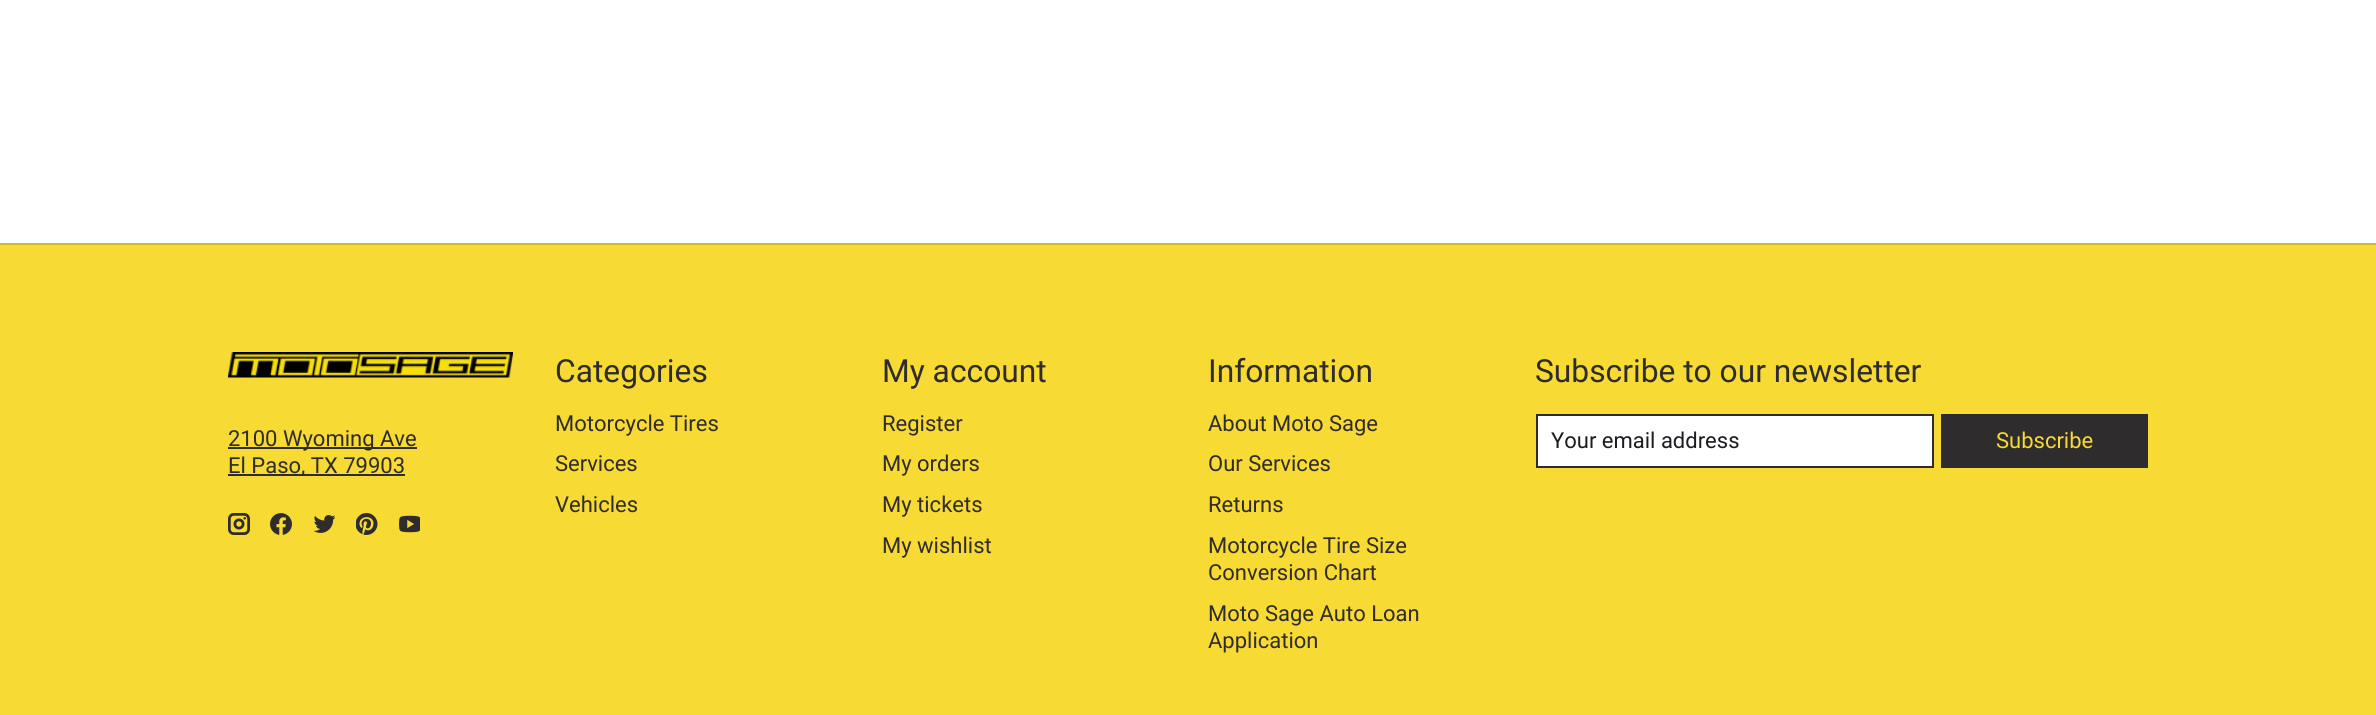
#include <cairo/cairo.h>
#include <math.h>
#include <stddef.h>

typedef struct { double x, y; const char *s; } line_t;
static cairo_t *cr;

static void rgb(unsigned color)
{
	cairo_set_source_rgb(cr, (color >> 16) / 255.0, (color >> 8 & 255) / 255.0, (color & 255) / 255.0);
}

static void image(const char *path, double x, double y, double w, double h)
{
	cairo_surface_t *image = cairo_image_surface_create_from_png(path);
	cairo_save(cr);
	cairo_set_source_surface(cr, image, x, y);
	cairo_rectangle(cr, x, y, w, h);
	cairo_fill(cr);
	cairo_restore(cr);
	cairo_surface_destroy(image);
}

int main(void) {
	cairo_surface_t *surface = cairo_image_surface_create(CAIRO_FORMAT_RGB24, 2376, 715);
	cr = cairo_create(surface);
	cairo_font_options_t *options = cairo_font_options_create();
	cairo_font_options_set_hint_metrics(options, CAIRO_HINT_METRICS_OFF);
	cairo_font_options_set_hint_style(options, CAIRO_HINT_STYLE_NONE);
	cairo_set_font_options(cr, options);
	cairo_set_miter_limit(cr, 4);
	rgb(0xffffff);
	cairo_paint(cr);
	rgb(0xf7da33);
	cairo_rectangle(cr, 0, 245, 2376, 470);
	cairo_fill(cr);
	rgb(0xcfb732);
	cairo_rectangle(cr, 0, 243, 2376, 2);
	cairo_fill(cr);
	image("img/1.png", 228, 352, 285, 26);
	rgb(0x2f2c2d);
	cairo_rectangle(cr, 228, 447, 189, 2);
	cairo_fill(cr);
	cairo_rectangle(cr, 228, 474, 177, 2);
	cairo_fill(cr);
	image("img/2.png", 228, 513, 22, 22);
	image("img/3.png", 270, 513, 22, 22);
	image("img/4.png", 314, 515, 21, 18);
	image("img/5.png", 356, 513, 22, 22);
	image("img/6.png", 399, 515, 21, 18);
	rgb(0xffffff);
	cairo_rectangle(cr, 1537, 415, 396, 52);
	cairo_fill_preserve(cr);
	rgb(0x2f2c2d);
	cairo_stroke(cr);
	cairo_rectangle(cr, 1941, 414, 207, 54);
	cairo_fill(cr);
	cairo_select_font_face(cr, "Roboto", CAIRO_FONT_SLANT_NORMAL, CAIRO_FONT_WEIGHT_NORMAL);
	cairo_set_font_size(cr, 22);
	cairo_move_to(cr, 228, 446);
	cairo_show_text(cr, "2100 Wyoming Ave");
	cairo_move_to(cr, 228, 473);
	cairo_show_text(cr, "El Paso, TX 79903");
	cairo_set_font_size(cr, 31.75);
	cairo_move_to(cr, 555, 382);
	cairo_show_text(cr, "Categories");
	cairo_set_font_size(cr, 22);
	{
		static const line_t items[] = {
			{555, 431, "Motorcycle Tires"},
			{555, 471, "Services"},
			{555, 512, "Vehicles"},
		};
		for (size_t i = 0; i < sizeof items / sizeof *items; i++) {
			cairo_move_to(cr, items[i].x, items[i].y);
			cairo_show_text(cr, items[i].s);
		}
	}
	cairo_set_font_size(cr, 31.75);
	cairo_move_to(cr, 882, 382);
	cairo_show_text(cr, "My account");
	cairo_set_font_size(cr, 22);
	{
		static const line_t items[] = {
			{882, 431, "Register"},
			{882, 471, "My orders"},
			{882, 512, "My tickets"},
			{882, 553, "My wishlist"},
		};
		for (size_t i = 0; i < sizeof items / sizeof *items; i++) {
			cairo_move_to(cr, items[i].x, items[i].y);
			cairo_show_text(cr, items[i].s);
		}
	}
	cairo_set_font_size(cr, 31.75);
	cairo_move_to(cr, 1208, 382);
	cairo_show_text(cr, "Information");
	cairo_set_font_size(cr, 22);
	{
		static const line_t items[] = {
			{1208, 431, "About Moto Sage"},
			{1208, 471, "Our Services"},
			{1208, 512, "Returns"},
			{1208, 553, "Motorcycle Tire Size"},
			{1208, 580, "Conversion Chart"},
			{1208, 621, "Moto Sage Auto Loan"},
			{1208, 648, "Application"},
		};
		for (size_t i = 0; i < sizeof items / sizeof *items; i++) {
			cairo_move_to(cr, items[i].x, items[i].y);
			cairo_show_text(cr, items[i].s);
		}
	}
	cairo_set_font_size(cr, 31.75);
	cairo_move_to(cr, 1535, 382);
	cairo_show_text(cr, "Subscribe to our newsletter");
	cairo_set_font_size(cr, 22);
	rgb(0x1c1c21);
	cairo_move_to(cr, 1551, 448);
	cairo_show_text(cr, "Your email address");
	rgb(0xf7da33);
	cairo_move_to(cr, 1996, 448);
	cairo_show_text(cr, "Subscribe");
	cairo_surface_write_to_png(surface, "page.png");
	cairo_font_options_destroy(options);
	cairo_destroy(cr);
	cairo_surface_destroy(surface);
	return 0;
}
